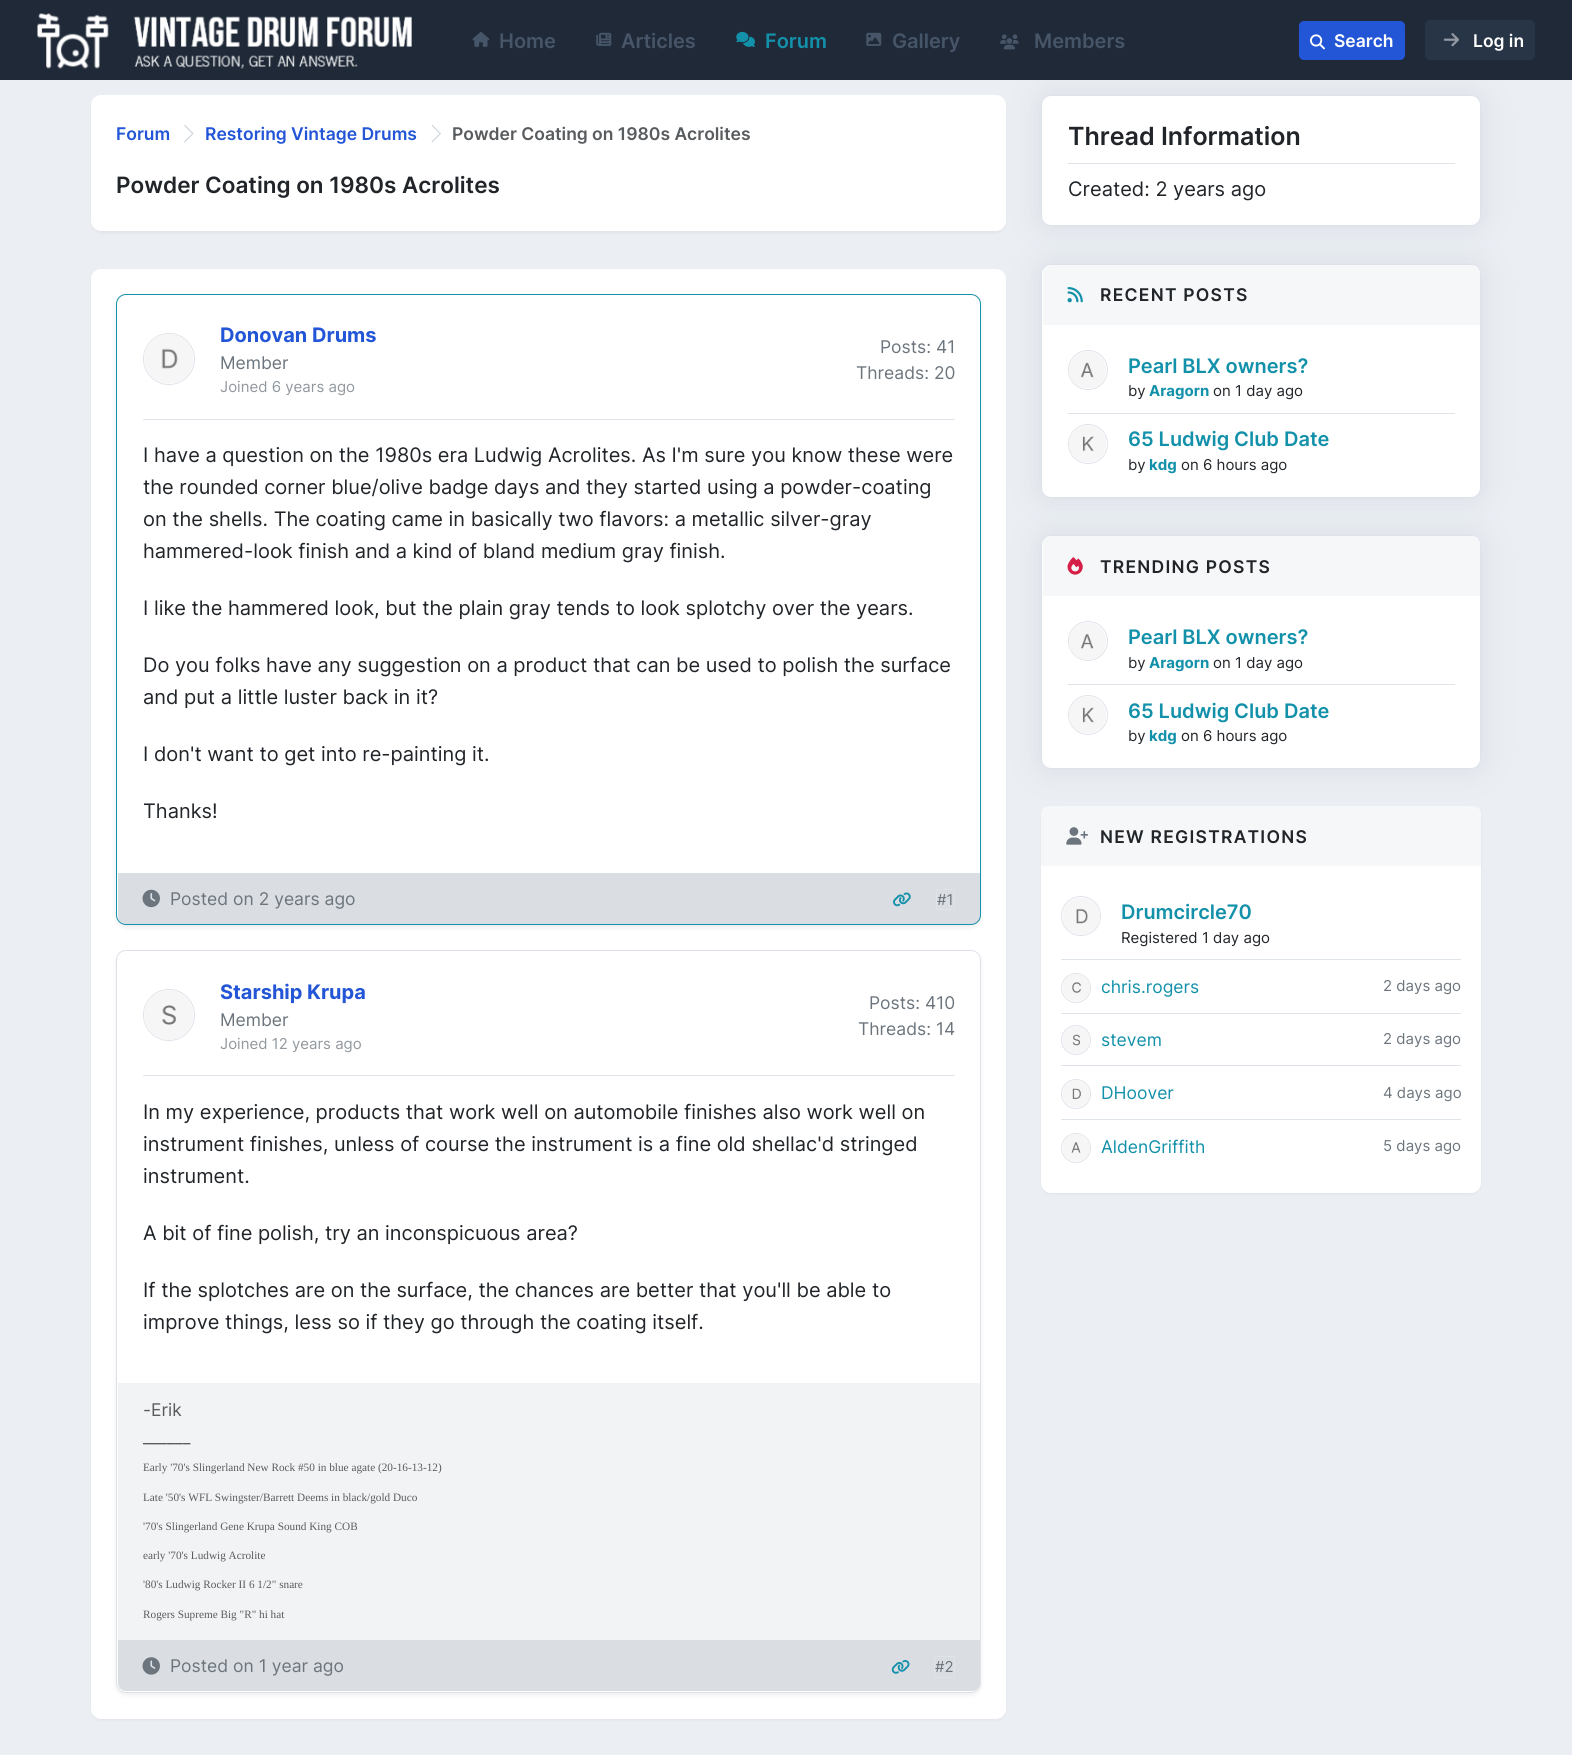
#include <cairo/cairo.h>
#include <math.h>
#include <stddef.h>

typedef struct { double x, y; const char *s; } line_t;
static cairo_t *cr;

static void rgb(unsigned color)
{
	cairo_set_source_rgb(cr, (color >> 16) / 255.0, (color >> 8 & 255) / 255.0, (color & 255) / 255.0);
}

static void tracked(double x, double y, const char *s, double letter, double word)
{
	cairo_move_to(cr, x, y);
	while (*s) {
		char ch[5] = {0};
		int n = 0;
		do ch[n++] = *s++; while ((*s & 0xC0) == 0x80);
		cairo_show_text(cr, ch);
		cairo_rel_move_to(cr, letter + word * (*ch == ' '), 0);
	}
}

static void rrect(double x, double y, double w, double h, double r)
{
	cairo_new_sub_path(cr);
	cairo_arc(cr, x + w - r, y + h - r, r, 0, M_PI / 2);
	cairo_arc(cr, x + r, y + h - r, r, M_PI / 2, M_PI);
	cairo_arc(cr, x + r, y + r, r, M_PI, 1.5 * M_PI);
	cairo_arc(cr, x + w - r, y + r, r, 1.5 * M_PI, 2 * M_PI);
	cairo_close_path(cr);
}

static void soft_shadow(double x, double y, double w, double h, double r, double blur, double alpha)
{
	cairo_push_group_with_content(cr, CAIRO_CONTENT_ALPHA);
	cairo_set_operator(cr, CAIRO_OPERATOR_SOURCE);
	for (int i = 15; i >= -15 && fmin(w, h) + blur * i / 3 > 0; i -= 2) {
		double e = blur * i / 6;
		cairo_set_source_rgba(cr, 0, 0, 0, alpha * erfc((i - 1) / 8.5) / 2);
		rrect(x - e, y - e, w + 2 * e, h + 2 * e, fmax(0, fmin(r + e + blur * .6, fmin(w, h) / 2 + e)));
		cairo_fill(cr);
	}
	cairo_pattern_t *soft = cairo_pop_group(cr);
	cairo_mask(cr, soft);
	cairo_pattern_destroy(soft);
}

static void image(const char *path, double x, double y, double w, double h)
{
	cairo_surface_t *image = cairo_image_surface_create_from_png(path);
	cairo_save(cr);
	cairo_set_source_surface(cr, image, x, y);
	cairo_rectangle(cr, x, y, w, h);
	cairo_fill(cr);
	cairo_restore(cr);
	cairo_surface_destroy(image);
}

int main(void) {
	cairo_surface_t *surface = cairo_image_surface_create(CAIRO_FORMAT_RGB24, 1572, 1755);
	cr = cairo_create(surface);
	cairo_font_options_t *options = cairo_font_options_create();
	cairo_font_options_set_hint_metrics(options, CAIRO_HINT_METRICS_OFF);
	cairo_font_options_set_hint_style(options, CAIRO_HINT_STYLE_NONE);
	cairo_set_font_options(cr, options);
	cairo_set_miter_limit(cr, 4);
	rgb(0xebeef2);
	cairo_paint(cr);
	rgb(0xd6dbe2);
	soft_shadow(91, 96, 915, 137, 10, 1, 0.5);
	rgb(0xffffff);
	rrect(91, 95, 915, 136, 10);
	cairo_fill(cr);
	rgb(0xd6dbe2);
	soft_shadow(91, 270, 915, 1450, 10, 1, 0.5);
	rgb(0xffffff);
	rrect(91, 269, 915, 1450, 10);
	cairo_fill(cr);
	rgb(0xd8dee6);
	soft_shadow(1041, 95, 440, 131, 10, 15, 1);
	rgb(0x1f2937);
	cairo_rectangle(cr, 0, 0, 1572, 80);
	cairo_fill(cr);
	image("img/1.png", 37, 13, 375, 56);
	image("img/2.png", 472, 32, 18, 15);
	image("img/3.png", 596, 32, 16, 14);
	image("img/4.png", 736, 31, 19, 16);
	image("img/5.png", 866, 32, 16, 14);
	image("img/6.png", 1000, 34, 19, 16);
	rgb(0x2356d7);
	rrect(1299.5, 21.5, 105, 38, 4.5);
	cairo_fill_preserve(cr);
	cairo_set_line_width(cr, 1);
	cairo_stroke(cr);
	image("img/7.png", 1310, 34, 15, 16);
	rgb(0x283547);
	rrect(1425.5, 20.5, 109, 39, 4.5);
	cairo_fill_preserve(cr);
	cairo_stroke(cr);
	image("img/8.png", 1443, 33, 16, 14);
	image("img/9.png", 184, 125, 10, 18);
	image("img/10.png", 431, 125, 10, 18);
	rgb(0x000000);
	soft_shadow(116, 296, 865, 632, 10, 2.5, 0.07);
	rgb(0xffffff);
	rrect(116.5, 294.5, 864, 630, 9.5);
	cairo_fill_preserve(cr);
	rgb(0x1391aa);
	cairo_stroke(cr);
	rgb(0xdfe3ea);
	cairo_rectangle(cr, 143, 419, 812, 1);
	cairo_fill(cr);
	cairo_arc(cr, 169, 359, 25.5, 0, 2 * M_PI);
	cairo_stroke(cr);
	image("img/11.png", 144, 334, 50, 50);
	cairo_set_source_rgba(cr, 0.278, 0.333, 0.412, 0.2);
	cairo_new_path(cr);
	cairo_move_to(cr, 118, 873);
	cairo_line_to(cr, 980, 873);
	cairo_line_to(cr, 980, 916);
	cairo_curve_to(cr, 980, 920.5, 976.5, 924, 972, 924);
	cairo_line_to(cr, 126, 924);
	cairo_curve_to(cr, 121.5, 924, 118, 920.5, 118, 916);
	cairo_close_path(cr);
	cairo_fill(cr);
	image("img/12.png", 142, 889, 18, 19);
	image("img/13.png", 893, 892, 18, 15);
	cairo_rectangle(cr, 936.5, 889.5, 18, 20);
	rgb(0xdfe3ea);
	cairo_stroke(cr);
	rgb(0x000000);
	soft_shadow(116, 953, 865, 742, 10, 2.5, 0.07);
	rgb(0xffffff);
	rrect(116.5, 950.5, 864, 742, 9.5);
	cairo_fill_preserve(cr);
	rgb(0xdde2e9);
	cairo_stroke(cr);
	rgb(0xdfe3ea);
	cairo_rectangle(cr, 143, 1075, 812, 1);
	cairo_fill(cr);
	cairo_arc(cr, 169, 1015, 25.5, 0, 2 * M_PI);
	cairo_stroke(cr);
	image("img/14.png", 144, 990, 50, 50);
	rgb(0xf2f3f4);
	cairo_rectangle(cr, 118, 1383, 862, 257);
	cairo_fill(cr);
	cairo_set_source_rgba(cr, 0.278, 0.333, 0.412, 0.2);
	cairo_new_path(cr);
	cairo_move_to(cr, 118, 1640);
	cairo_line_to(cr, 980, 1640);
	cairo_line_to(cr, 980, 1683);
	cairo_curve_to(cr, 980, 1687.5, 976.5, 1691, 972, 1691);
	cairo_line_to(cr, 126, 1691);
	cairo_curve_to(cr, 121.5, 1691, 118, 1687.5, 118, 1683);
	cairo_close_path(cr);
	cairo_fill(cr);
	image("img/15.png", 142, 1657, 18, 18);
	image("img/16.png", 891, 1660, 19, 14);
	cairo_rectangle(cr, 934.5, 1656.5, 20, 21);
	rgb(0xdfe3ea);
	cairo_stroke(cr);
	rgb(0xffffff);
	rrect(1041.5, 95.5, 439, 130, 9.5);
	cairo_fill_preserve(cr);
	rgb(0xdde2e9);
	cairo_stroke(cr);
	rgb(0xdfe3ea);
	cairo_rectangle(cr, 1068, 163, 387, 1);
	cairo_fill(cr);
	rgb(0xd8dee6);
	soft_shadow(1041, 264, 440, 234, 10, 15, 1);
	rgb(0xffffff);
	rrect(1041.5, 264.5, 439, 233, 9.5);
	cairo_fill_preserve(cr);
	rgb(0xdde2e9);
	cairo_stroke(cr);
	rgb(0xf6f7f9);
	cairo_new_path(cr);
	cairo_move_to(cr, 1051, 265);
	cairo_line_to(cr, 1472, 265);
	cairo_curve_to(cr, 1476.5, 265, 1480, 268.5, 1480, 273);
	cairo_line_to(cr, 1480, 325);
	cairo_line_to(cr, 1043, 325);
	cairo_line_to(cr, 1043, 273);
	cairo_curve_to(cr, 1043, 268.5, 1046.5, 265, 1051, 265);
	cairo_close_path(cr);
	cairo_fill(cr);
	image("img/17.png", 1067, 287, 16, 16);
	rgb(0xdfe3ea);
	cairo_rectangle(cr, 1068, 413, 387, 1);
	cairo_fill(cr);
	cairo_arc(cr, 1088, 370, 19.5, 0, 2 * M_PI);
	cairo_stroke(cr);
	image("img/18.png", 1069, 351, 37, 38);
	cairo_arc(cr, 1088, 444, 19.5, 0, 2 * M_PI);
	cairo_stroke(cr);
	image("img/19.png", 1069, 425, 37, 37);
	rgb(0xd8dee6);
	soft_shadow(1041, 535, 440, 234, 10, 15, 1);
	rgb(0xffffff);
	rrect(1041.5, 535.5, 439, 233, 9.5);
	cairo_fill_preserve(cr);
	rgb(0xdde2e9);
	cairo_stroke(cr);
	rgb(0xf6f7f9);
	cairo_new_path(cr);
	cairo_move_to(cr, 1051, 536);
	cairo_line_to(cr, 1472, 536);
	cairo_curve_to(cr, 1476.5, 536, 1480, 539.5, 1480, 544);
	cairo_line_to(cr, 1480, 596);
	cairo_line_to(cr, 1043, 596);
	cairo_line_to(cr, 1043, 544);
	cairo_curve_to(cr, 1043, 539.5, 1046.5, 536, 1051, 536);
	cairo_close_path(cr);
	cairo_fill(cr);
	image("img/20.png", 1067, 557, 16, 18);
	rgb(0xdfe3ea);
	cairo_rectangle(cr, 1068, 684, 387, 1);
	cairo_fill(cr);
	cairo_arc(cr, 1088, 641, 19.5, 0, 2 * M_PI);
	cairo_stroke(cr);
	image("img/21.png", 1069, 623, 37, 37);
	cairo_arc(cr, 1088, 715, 19.5, 0, 2 * M_PI);
	cairo_stroke(cr);
	image("img/22.png", 1069, 696, 37, 38);
	rgb(0xd6dbe2);
	soft_shadow(1041, 808, 440, 386, 10, 1, 0.5);
	rgb(0xffffff);
	rrect(1041, 806, 440, 387, 10);
	cairo_fill(cr);
	rgb(0xf6f7f9);
	cairo_new_path(cr);
	cairo_move_to(cr, 1049, 806);
	cairo_line_to(cr, 1473, 806);
	cairo_curve_to(cr, 1477.5, 806, 1481, 809.5, 1481, 814);
	cairo_line_to(cr, 1481, 866);
	cairo_line_to(cr, 1041, 866);
	cairo_line_to(cr, 1041, 814);
	cairo_curve_to(cr, 1041, 809.5, 1044.5, 806, 1049, 806);
	cairo_close_path(cr);
	cairo_fill(cr);
	image("img/23.png", 1066, 827, 23, 18);
	rgb(0xdfe3ea);
	cairo_rectangle(cr, 1061, 959, 400, 1);
	cairo_fill(cr);
	cairo_arc(cr, 1081, 916, 19.5, 0, 2 * M_PI);
	cairo_stroke(cr);
	image("img/24.png", 1063, 898, 37, 37);
	cairo_rectangle(cr, 1061, 1013, 400, 1);
	cairo_fill(cr);
	cairo_arc(cr, 1076, 988, 14.5, 0, 2 * M_PI);
	cairo_stroke(cr);
	image("img/25.png", 1063, 974, 27, 27);
	cairo_rectangle(cr, 1061, 1065, 400, 1);
	cairo_fill(cr);
	cairo_arc(cr, 1076, 1040, 14.5, 0, 2 * M_PI);
	cairo_stroke(cr);
	image("img/26.png", 1063, 1026, 27, 28);
	cairo_rectangle(cr, 1061, 1119, 400, 1);
	cairo_fill(cr);
	cairo_arc(cr, 1076, 1094, 14.5, 0, 2 * M_PI);
	cairo_stroke(cr);
	image("img/27.png", 1063, 1080, 27, 27);
	cairo_arc(cr, 1076, 1148, 14.5, 0, 2 * M_PI);
	cairo_stroke(cr);
	image("img/28.png", 1063, 1134, 27, 27);
	cairo_select_font_face(cr, "Inter SemiBold", CAIRO_FONT_SLANT_NORMAL, CAIRO_FONT_WEIGHT_NORMAL);
	cairo_set_font_size(cr, 20);
	rgb(0x475569);
	cairo_move_to(cr, 499, 48);
	cairo_show_text(cr, "Home");
	cairo_move_to(cr, 621, 48);
	cairo_show_text(cr, "Articles");
	rgb(0x1391aa);
	cairo_move_to(cr, 765, 48);
	cairo_show_text(cr, "Forum");
	rgb(0x475569);
	cairo_move_to(cr, 892, 48);
	cairo_show_text(cr, "Gallery");
	cairo_move_to(cr, 1034, 48);
	cairo_show_text(cr, "Members");
	cairo_set_font_size(cr, 17.5);
	rgb(0xffffff);
	cairo_move_to(cr, 1334, 47);
	cairo_show_text(cr, "Search");
	cairo_move_to(cr, 1473, 47);
	cairo_show_text(cr, "Log in");
	rgb(0x2356d7);
	cairo_move_to(cr, 116, 140);
	cairo_show_text(cr, "Forum");
	cairo_move_to(cr, 205, 140);
	cairo_show_text(cr, "Restoring Vintage Drums");
	rgb(0x595c5f);
	cairo_move_to(cr, 452, 140);
	cairo_show_text(cr, "Powder Coating on 1980s Acrolites");
	cairo_set_font_size(cr, 22.5);
	rgb(0x212529);
	cairo_move_to(cr, 116, 193);
	cairo_show_text(cr, "Powder Coating on 1980s Acrolites");
	cairo_select_font_face(cr, "Inter", CAIRO_FONT_SLANT_NORMAL, CAIRO_FONT_WEIGHT_BOLD);
	cairo_set_font_size(cr, 20);
	rgb(0x2356d7);
	cairo_move_to(cr, 220, 342);
	cairo_show_text(cr, "Donovan Drums");
	cairo_select_font_face(cr, "Inter", CAIRO_FONT_SLANT_NORMAL, CAIRO_FONT_WEIGHT_NORMAL);
	cairo_set_font_size(cr, 17.5);
	rgb(0x6c757d);
	cairo_move_to(cr, 220, 369);
	cairo_show_text(cr, "Member");
	cairo_set_font_size(cr, 15);
	rgb(0x91989e);
	cairo_move_to(cr, 220, 392);
	cairo_show_text(cr, "Joined 6 years ago");
	cairo_set_font_size(cr, 17.5);
	rgb(0x6c757d);
	cairo_move_to(cr, 880, 353);
	cairo_show_text(cr, "Posts: 41");
	cairo_move_to(cr, 856, 379);
	cairo_show_text(cr, "Threads: 20");
	cairo_set_font_size(cr, 20);
	rgb(0x212529);
	{
		static const line_t items[] = {
			{143, 462, "I have a question on the 1980s era Ludwig Acrolites. As I'm sure you know these were"},
			{143, 494, "the rounded corner blue/olive badge days and they started using a powder-coating"},
			{143, 526, "on the shells. The coating came in basically two flavors: a metallic silver-gray"},
			{143, 558, "hammered-look finish and a kind of bland medium gray finish."},
			{143, 615, "I like the hammered look, but the plain gray tends to look splotchy over the years."},
			{143, 672, "Do you folks have any suggestion on a product that can be used to polish the surface"},
			{143, 704, "and put a little luster back in it?"},
			{143, 761, "I don't want to get into re-painting it."},
			{143, 818, "Thanks!"},
		};
		for (size_t i = 0; i < sizeof items / sizeof *items; i++) {
			cairo_move_to(cr, items[i].x, items[i].y);
			cairo_show_text(cr, items[i].s);
		}
	}
	cairo_set_font_size(cr, 17.5);
	rgb(0x6c757d);
	cairo_move_to(cr, 170, 905);
	cairo_show_text(cr, "Posted on 2 years ago");
	cairo_set_font_size(cr, 15);
	cairo_move_to(cr, 937, 905);
	cairo_show_text(cr, "#1");
	cairo_select_font_face(cr, "Inter", CAIRO_FONT_SLANT_NORMAL, CAIRO_FONT_WEIGHT_BOLD);
	cairo_set_font_size(cr, 20);
	rgb(0x2356d7);
	cairo_move_to(cr, 220, 999);
	cairo_show_text(cr, "Starship Krupa");
	cairo_select_font_face(cr, "Inter", CAIRO_FONT_SLANT_NORMAL, CAIRO_FONT_WEIGHT_NORMAL);
	cairo_set_font_size(cr, 17.5);
	rgb(0x6c757d);
	cairo_move_to(cr, 220, 1026);
	cairo_show_text(cr, "Member");
	cairo_set_font_size(cr, 15);
	rgb(0x91989e);
	cairo_move_to(cr, 220, 1049);
	cairo_show_text(cr, "Joined 12 years ago");
	cairo_set_font_size(cr, 17.5);
	rgb(0x6c757d);
	cairo_move_to(cr, 869, 1009);
	cairo_show_text(cr, "Posts: 410");
	cairo_move_to(cr, 858, 1035);
	cairo_show_text(cr, "Threads: 14");
	cairo_set_font_size(cr, 20);
	rgb(0x212529);
	{
		static const line_t items[] = {
			{143, 1119, "In my experience, products that work well on automobile finishes also work well on"},
			{143, 1151, "instrument finishes, unless of course the instrument is a fine old shellac'd stringed"},
			{143, 1183, "instrument."},
			{143, 1240, "A bit of fine polish, try an inconspicuous area?"},
			{143, 1297, "If the splotches are on the surface, the chances are better that you'll be able to"},
			{143, 1329, "improve things, less so if they go through the coating itself."},
		};
		for (size_t i = 0; i < sizeof items / sizeof *items; i++) {
			cairo_move_to(cr, items[i].x, items[i].y);
			cairo_show_text(cr, items[i].s);
		}
	}
	cairo_set_font_size(cr, 17.5);
	rgb(0x595c5f);
	cairo_move_to(cr, 143, 1416);
	cairo_show_text(cr, "-Erik");
	cairo_move_to(cr, 143, 1443);
	cairo_show_text(cr, "______");
	cairo_select_font_face(cr, "Liberation Serif", CAIRO_FONT_SLANT_NORMAL, CAIRO_FONT_WEIGHT_NORMAL);
	cairo_set_font_size(cr, 11.25);
	{
		static const line_t items[] = {
			{143, 1471, "Early '70's Slingerland New Rock #50 in blue agate (20-16-13-12)"},
			{143, 1501, "Late '50's WFL Swingster/Barrett Deems in black/gold Duco"},
			{143, 1530, "'70's Slingerland Gene Krupa Sound King COB"},
			{143, 1559, "early '70's Ludwig Acrolite"},
			{143, 1588, "'80's Ludwig Rocker II 6 1/2\" snare"},
			{143, 1618, "Rogers Supreme Big \"R\" hi hat"},
		};
		for (size_t i = 0; i < sizeof items / sizeof *items; i++) {
			cairo_move_to(cr, items[i].x, items[i].y);
			cairo_show_text(cr, items[i].s);
		}
	}
	cairo_select_font_face(cr, "Inter", CAIRO_FONT_SLANT_NORMAL, CAIRO_FONT_WEIGHT_NORMAL);
	cairo_set_font_size(cr, 17.5);
	rgb(0x6c757d);
	cairo_move_to(cr, 170, 1672);
	cairo_show_text(cr, "Posted on 1 year ago");
	cairo_set_font_size(cr, 15);
	cairo_move_to(cr, 935, 1672);
	cairo_show_text(cr, "#2");
	cairo_select_font_face(cr, "Inter SemiBold", CAIRO_FONT_SLANT_NORMAL, CAIRO_FONT_WEIGHT_NORMAL);
	cairo_set_font_size(cr, 25);
	rgb(0x212529);
	cairo_move_to(cr, 1068, 145);
	cairo_show_text(cr, "Thread Information");
	cairo_select_font_face(cr, "Inter", CAIRO_FONT_SLANT_NORMAL, CAIRO_FONT_WEIGHT_NORMAL);
	cairo_set_font_size(cr, 20);
	cairo_move_to(cr, 1068, 196);
	cairo_show_text(cr, "Created: 2 years ago");
	cairo_select_font_face(cr, "Inter SemiBold", CAIRO_FONT_SLANT_NORMAL, CAIRO_FONT_WEIGHT_NORMAL);
	cairo_set_font_size(cr, 17.5);
	tracked(1100, 301, "RECENT POSTS", 1.25, 0);
	cairo_set_font_size(cr, 20);
	rgb(0x1391aa);
	cairo_move_to(cr, 1128, 373);
	cairo_show_text(cr, "Pearl BLX owners?");
	cairo_select_font_face(cr, "Inter", CAIRO_FONT_SLANT_NORMAL, CAIRO_FONT_WEIGHT_NORMAL);
	cairo_set_font_size(cr, 15);
	rgb(0x212529);
	cairo_move_to(cr, 1128, 396);
	cairo_show_text(cr, "by");
	cairo_select_font_face(cr, "Inter", CAIRO_FONT_SLANT_NORMAL, CAIRO_FONT_WEIGHT_BOLD);
	rgb(0x1391aa);
	cairo_move_to(cr, 1149, 396);
	cairo_show_text(cr, "Aragorn");
	cairo_select_font_face(cr, "Inter", CAIRO_FONT_SLANT_NORMAL, CAIRO_FONT_WEIGHT_NORMAL);
	rgb(0x212529);
	cairo_move_to(cr, 1213, 396);
	cairo_show_text(cr, "on 1 day ago");
	cairo_select_font_face(cr, "Inter SemiBold", CAIRO_FONT_SLANT_NORMAL, CAIRO_FONT_WEIGHT_NORMAL);
	cairo_set_font_size(cr, 20);
	rgb(0x1391aa);
	cairo_move_to(cr, 1128, 446);
	cairo_show_text(cr, "65 Ludwig Club Date");
	cairo_select_font_face(cr, "Inter", CAIRO_FONT_SLANT_NORMAL, CAIRO_FONT_WEIGHT_NORMAL);
	cairo_set_font_size(cr, 15);
	rgb(0x212529);
	cairo_move_to(cr, 1128, 470);
	cairo_show_text(cr, "by");
	cairo_select_font_face(cr, "Inter", CAIRO_FONT_SLANT_NORMAL, CAIRO_FONT_WEIGHT_BOLD);
	rgb(0x1391aa);
	cairo_move_to(cr, 1149, 470);
	cairo_show_text(cr, "kdg");
	cairo_select_font_face(cr, "Inter", CAIRO_FONT_SLANT_NORMAL, CAIRO_FONT_WEIGHT_NORMAL);
	rgb(0x212529);
	cairo_move_to(cr, 1181, 470);
	cairo_show_text(cr, "on 6 hours ago");
	cairo_select_font_face(cr, "Inter SemiBold", CAIRO_FONT_SLANT_NORMAL, CAIRO_FONT_WEIGHT_NORMAL);
	cairo_set_font_size(cr, 17.5);
	tracked(1100, 573, "TRENDING POSTS", 1.25, 0);
	cairo_set_font_size(cr, 20);
	rgb(0x1391aa);
	cairo_move_to(cr, 1128, 644);
	cairo_show_text(cr, "Pearl BLX owners?");
	cairo_select_font_face(cr, "Inter", CAIRO_FONT_SLANT_NORMAL, CAIRO_FONT_WEIGHT_NORMAL);
	cairo_set_font_size(cr, 15);
	rgb(0x212529);
	cairo_move_to(cr, 1128, 668);
	cairo_show_text(cr, "by");
	cairo_select_font_face(cr, "Inter", CAIRO_FONT_SLANT_NORMAL, CAIRO_FONT_WEIGHT_BOLD);
	rgb(0x1391aa);
	cairo_move_to(cr, 1149, 668);
	cairo_show_text(cr, "Aragorn");
	cairo_select_font_face(cr, "Inter", CAIRO_FONT_SLANT_NORMAL, CAIRO_FONT_WEIGHT_NORMAL);
	rgb(0x212529);
	cairo_move_to(cr, 1213, 668);
	cairo_show_text(cr, "on 1 day ago");
	cairo_select_font_face(cr, "Inter SemiBold", CAIRO_FONT_SLANT_NORMAL, CAIRO_FONT_WEIGHT_NORMAL);
	cairo_set_font_size(cr, 20);
	rgb(0x1391aa);
	cairo_move_to(cr, 1128, 718);
	cairo_show_text(cr, "65 Ludwig Club Date");
	cairo_select_font_face(cr, "Inter", CAIRO_FONT_SLANT_NORMAL, CAIRO_FONT_WEIGHT_NORMAL);
	cairo_set_font_size(cr, 15);
	rgb(0x212529);
	cairo_move_to(cr, 1128, 741);
	cairo_show_text(cr, "by");
	cairo_select_font_face(cr, "Inter", CAIRO_FONT_SLANT_NORMAL, CAIRO_FONT_WEIGHT_BOLD);
	rgb(0x1391aa);
	cairo_move_to(cr, 1149, 741);
	cairo_show_text(cr, "kdg");
	cairo_select_font_face(cr, "Inter", CAIRO_FONT_SLANT_NORMAL, CAIRO_FONT_WEIGHT_NORMAL);
	rgb(0x212529);
	cairo_move_to(cr, 1181, 741);
	cairo_show_text(cr, "on 6 hours ago");
	cairo_select_font_face(cr, "Inter SemiBold", CAIRO_FONT_SLANT_NORMAL, CAIRO_FONT_WEIGHT_NORMAL);
	cairo_set_font_size(cr, 17.5);
	tracked(1100, 843, "NEW REGISTRATIONS", 1.25, 0);
	cairo_set_font_size(cr, 20);
	rgb(0x1391aa);
	cairo_move_to(cr, 1121, 919);
	cairo_show_text(cr, "Drumcircle70");
	cairo_select_font_face(cr, "Inter", CAIRO_FONT_SLANT_NORMAL, CAIRO_FONT_WEIGHT_NORMAL);
	cairo_set_font_size(cr, 15);
	rgb(0x212529);
	cairo_move_to(cr, 1121, 943);
	cairo_show_text(cr, "Registered 1 day ago");
	cairo_set_font_size(cr, 17.5);
	rgb(0x1391aa);
	cairo_move_to(cr, 1101, 993);
	cairo_show_text(cr, "chris.rogers");
	cairo_set_font_size(cr, 15);
	rgb(0x6c757d);
	cairo_move_to(cr, 1383, 991);
	cairo_show_text(cr, "2 days ago");
	cairo_set_font_size(cr, 17.5);
	rgb(0x1391aa);
	cairo_move_to(cr, 1101, 1046);
	cairo_show_text(cr, "stevem");
	cairo_set_font_size(cr, 15);
	rgb(0x6c757d);
	cairo_move_to(cr, 1383, 1044);
	cairo_show_text(cr, "2 days ago");
	cairo_set_font_size(cr, 17.5);
	rgb(0x1391aa);
	cairo_move_to(cr, 1101, 1099);
	cairo_show_text(cr, "DHoover");
	cairo_set_font_size(cr, 15);
	rgb(0x6c757d);
	cairo_move_to(cr, 1383, 1098);
	cairo_show_text(cr, "4 days ago");
	cairo_set_font_size(cr, 17.5);
	rgb(0x1391aa);
	cairo_move_to(cr, 1101, 1153);
	cairo_show_text(cr, "AldenGriffith");
	cairo_set_font_size(cr, 15);
	rgb(0x6c757d);
	cairo_move_to(cr, 1383, 1151);
	cairo_show_text(cr, "5 days ago");
	cairo_surface_write_to_png(surface, "page.png");
	cairo_font_options_destroy(options);
	cairo_destroy(cr);
	cairo_surface_destroy(surface);
	return 0;
}
